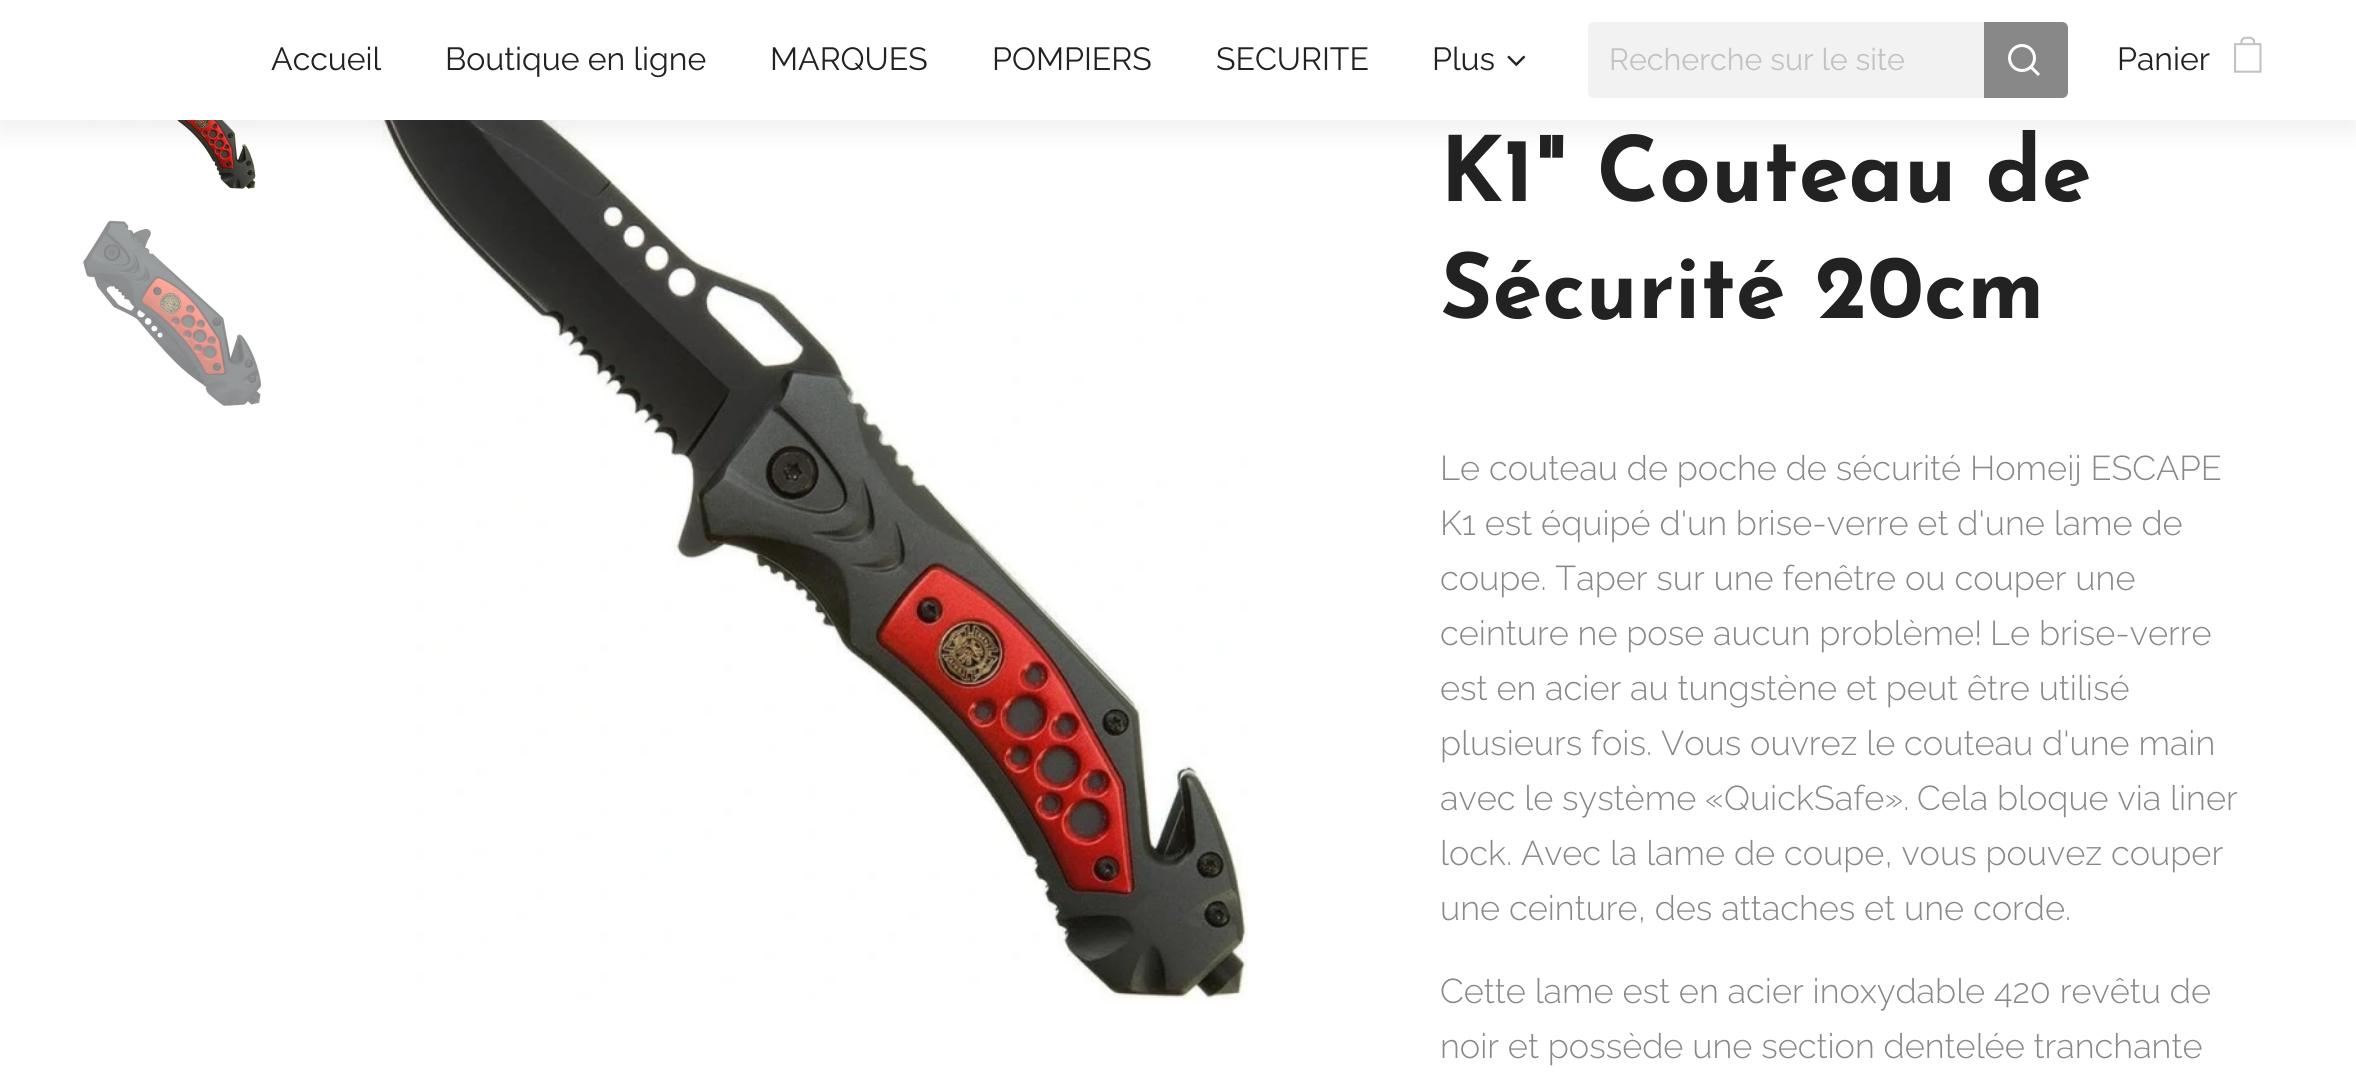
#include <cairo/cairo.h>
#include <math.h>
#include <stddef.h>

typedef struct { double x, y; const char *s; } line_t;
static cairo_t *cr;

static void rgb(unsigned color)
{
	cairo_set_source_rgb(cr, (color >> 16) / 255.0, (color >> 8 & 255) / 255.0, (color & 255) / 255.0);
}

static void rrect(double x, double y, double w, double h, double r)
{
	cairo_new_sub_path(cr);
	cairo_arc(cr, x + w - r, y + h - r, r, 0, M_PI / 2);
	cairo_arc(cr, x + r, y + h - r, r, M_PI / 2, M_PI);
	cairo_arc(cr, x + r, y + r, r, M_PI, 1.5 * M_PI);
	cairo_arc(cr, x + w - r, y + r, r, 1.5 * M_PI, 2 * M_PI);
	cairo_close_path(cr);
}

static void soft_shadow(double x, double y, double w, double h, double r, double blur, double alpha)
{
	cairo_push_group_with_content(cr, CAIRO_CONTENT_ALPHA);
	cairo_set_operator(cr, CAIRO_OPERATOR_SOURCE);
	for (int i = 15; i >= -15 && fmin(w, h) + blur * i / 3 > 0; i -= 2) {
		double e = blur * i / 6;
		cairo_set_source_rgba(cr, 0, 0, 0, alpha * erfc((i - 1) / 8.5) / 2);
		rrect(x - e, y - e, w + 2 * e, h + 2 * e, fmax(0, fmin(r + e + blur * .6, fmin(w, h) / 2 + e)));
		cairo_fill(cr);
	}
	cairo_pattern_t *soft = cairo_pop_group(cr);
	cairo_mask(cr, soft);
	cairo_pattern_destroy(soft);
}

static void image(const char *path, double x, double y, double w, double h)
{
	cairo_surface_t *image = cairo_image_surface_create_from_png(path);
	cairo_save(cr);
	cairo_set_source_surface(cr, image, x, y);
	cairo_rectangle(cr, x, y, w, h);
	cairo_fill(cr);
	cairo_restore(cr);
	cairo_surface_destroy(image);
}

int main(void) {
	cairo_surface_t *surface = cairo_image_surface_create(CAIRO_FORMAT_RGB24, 2356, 1074);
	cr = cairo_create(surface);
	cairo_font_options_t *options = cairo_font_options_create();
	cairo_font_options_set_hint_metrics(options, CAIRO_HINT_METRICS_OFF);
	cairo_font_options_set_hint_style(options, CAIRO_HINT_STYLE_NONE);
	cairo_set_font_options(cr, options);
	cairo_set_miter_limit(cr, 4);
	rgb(0xffffff);
	cairo_paint(cr);
	image("img/4.png", 83, 120, 173, 70);
	image("img/6.png", 358, 120, 890, 882);
	rgb(0x000000);
	soft_shadow(0, 10, 2356, 120, 0, 15, 0.07);
	rgb(0xffffff);
	cairo_rectangle(cr, 0, 0, 2356, 120);
	cairo_fill(cr);
	image("img/1.png", 1507, 55, 19, 11);
	rgb(0xf2f2f2);
	cairo_new_path(cr);
	cairo_move_to(cr, 1594, 22);
	cairo_line_to(cr, 1984, 22);
	cairo_line_to(cr, 1984, 98);
	cairo_line_to(cr, 1594, 98);
	cairo_curve_to(cr, 1590.5, 98, 1588, 95.5, 1588, 92);
	cairo_line_to(cr, 1588, 28);
	cairo_curve_to(cr, 1588, 24.5, 1590.5, 22, 1594, 22);
	cairo_close_path(cr);
	cairo_fill(cr);
	rgb(0x888888);
	cairo_new_path(cr);
	cairo_move_to(cr, 1984, 22);
	cairo_line_to(cr, 2062, 22);
	cairo_curve_to(cr, 2065.5, 22, 2068, 24.5, 2068, 28);
	cairo_line_to(cr, 2068, 92);
	cairo_curve_to(cr, 2068, 95.5, 2065.5, 98, 2062, 98);
	cairo_line_to(cr, 1984, 98);
	cairo_close_path(cr);
	cairo_fill(cr);
	image("img/2.png", 2008, 44, 32, 32);
	image("img/3.png", 2234, 36, 28, 37);
	image("img/5.png", 83, 220, 179, 186);
	cairo_select_font_face(cr, "Raleway", CAIRO_FONT_SLANT_NORMAL, CAIRO_FONT_WEIGHT_NORMAL);
	cairo_set_font_size(cr, 32);
	rgb(0x222222);
	{
		static const line_t items[] = {
			{271, 70, "Accueil"},
			{445, 70, "Boutique en ligne"},
			{770, 70, "MARQUES"},
			{992, 70, "POMPIERS"},
			{1216, 70, "SECURITE"},
			{1432, 70, "Plus"},
		};
		for (size_t i = 0; i < sizeof items / sizeof *items; i++) {
			cairo_move_to(cr, items[i].x, items[i].y);
			cairo_show_text(cr, items[i].s);
		}
	}
	cairo_set_font_size(cr, 30.5);
	rgb(0xc3c3c3);
	cairo_move_to(cr, 1609, 70);
	cairo_show_text(cr, "Recherche sur le site");
	cairo_set_font_size(cr, 32);
	rgb(0x222222);
	cairo_move_to(cr, 2117, 70);
	cairo_show_text(cr, "Panier");
	cairo_select_font_face(cr, "Josefin Sans", CAIRO_FONT_SLANT_NORMAL, CAIRO_FONT_WEIGHT_BOLD);
	cairo_set_font_size(cr, 90);
	cairo_move_to(cr, 1440, 201);
	cairo_show_text(cr, "K1\" Couteau de");
	cairo_move_to(cr, 1440, 318);
	cairo_show_text(cr, "Sécurité 20cm");
	cairo_select_font_face(cr, "Raleway Light", CAIRO_FONT_SLANT_NORMAL, CAIRO_FONT_WEIGHT_NORMAL);
	cairo_set_font_size(cr, 34.4);
	rgb(0x888888);
	{
		static const line_t items[] = {
			{1440, 480, "Le couteau de poche de sécurité Homeij ESCAPE"},
			{1440, 535, "K1 est équipé d'un brise-verre et d'une lame de"},
			{1440, 590, "coupe. Taper sur une fenêtre ou couper une"},
			{1440, 645, "ceinture ne pose aucun problème!"},
			{1990, 645, "Le brise-verre"},
			{1440, 700, "est en acier au tungstène et peut être utilisé"},
			{1440, 755, "plusieurs fois. Vous ouvrez le couteau d'une main"},
			{1440, 810, "avec le système «QuickSafe»."},
			{1917, 810, "Cela bloque via liner"},
			{1440, 865, "lock. Avec la lame de coupe, vous pouvez couper"},
			{1440, 920, "une ceinture, des attaches et une corde."},
			{1440, 1003, "Cette lame est en acier inoxydable 420 revêtu de"},
			{1440, 1058, "noir et possède une section dentelée tranchante"},
		};
		for (size_t i = 0; i < sizeof items / sizeof *items; i++) {
			cairo_move_to(cr, items[i].x, items[i].y);
			cairo_show_text(cr, items[i].s);
		}
	}
	cairo_surface_write_to_png(surface, "page.png");
	cairo_font_options_destroy(options);
	cairo_destroy(cr);
	cairo_surface_destroy(surface);
	return 0;
}
